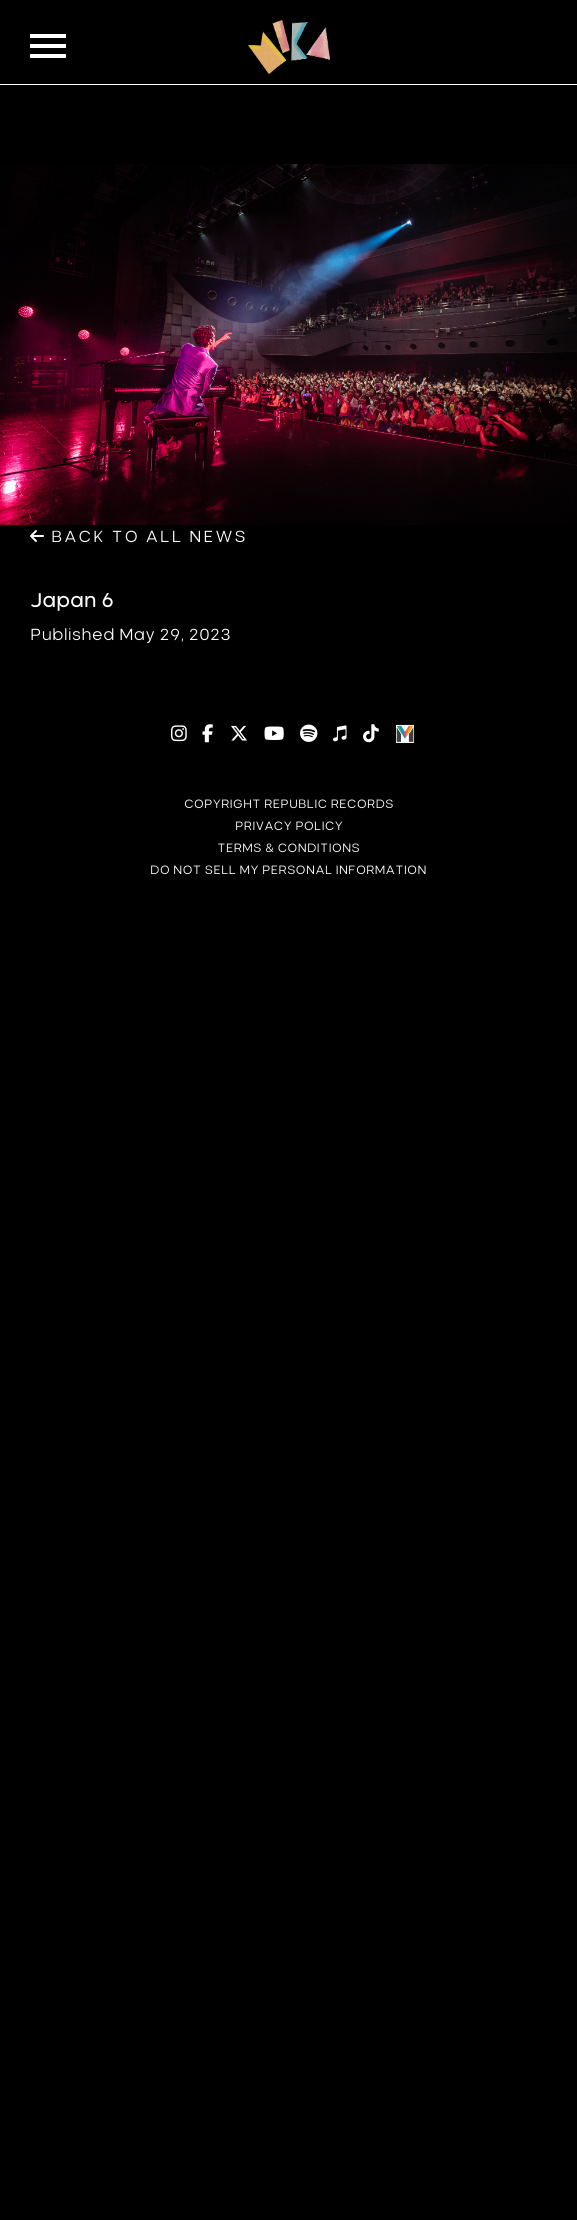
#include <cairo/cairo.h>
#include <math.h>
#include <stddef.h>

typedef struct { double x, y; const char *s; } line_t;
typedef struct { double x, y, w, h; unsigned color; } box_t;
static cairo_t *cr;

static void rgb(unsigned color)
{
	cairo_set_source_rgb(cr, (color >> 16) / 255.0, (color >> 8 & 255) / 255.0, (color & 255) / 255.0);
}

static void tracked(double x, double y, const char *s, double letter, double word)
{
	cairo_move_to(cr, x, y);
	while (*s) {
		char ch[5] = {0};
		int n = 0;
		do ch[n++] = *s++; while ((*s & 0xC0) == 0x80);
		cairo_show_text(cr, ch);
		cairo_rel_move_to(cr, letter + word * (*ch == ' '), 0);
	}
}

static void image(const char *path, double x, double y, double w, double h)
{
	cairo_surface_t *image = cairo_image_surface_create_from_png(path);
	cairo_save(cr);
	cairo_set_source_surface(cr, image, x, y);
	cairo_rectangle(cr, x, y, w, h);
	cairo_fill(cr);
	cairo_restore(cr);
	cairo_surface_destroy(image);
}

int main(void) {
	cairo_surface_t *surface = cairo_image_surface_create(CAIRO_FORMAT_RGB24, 577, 2220);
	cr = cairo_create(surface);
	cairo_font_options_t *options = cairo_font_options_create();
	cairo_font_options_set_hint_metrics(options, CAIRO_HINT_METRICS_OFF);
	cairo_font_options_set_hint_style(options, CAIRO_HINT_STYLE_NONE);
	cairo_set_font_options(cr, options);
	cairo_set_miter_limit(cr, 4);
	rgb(0x000000);
	cairo_paint(cr);
	{
		static const box_t items[] = {
			{0, 84, 577, 1, 0xffffff},
			{30, 44, 36, 4, 0xffffff},
			{30, 34, 36, 4, 0xffffff},
			{30, 54, 36, 4, 0xffffff},
		};
		for (size_t i = 0; i < sizeof items / sizeof *items; i++) {
			rgb(items[i].color);
			cairo_rectangle(cr, items[i].x, items[i].y, items[i].w, items[i].h);
			cairo_fill(cr);
		}
	}
	image("img/1.png", 248, 20, 82, 54);
	image("img/2.png", 0, 164, 577, 361);
	image("img/3.png", 30, 530, 14, 12);
	image("img/4.png", 171, 725, 16, 17);
	image("img/5.png", 202, 724, 11, 19);
	image("img/6.png", 231, 725, 16, 16);
	image("img/7.png", 264, 726, 20, 14);
	image("img/8.png", 300, 724, 18, 18);
	image("img/9.png", 333, 725, 14, 17);
	image("img/10.png", 363, 724, 16, 19);
	image("img/11.png", 396, 724, 18, 19);
	cairo_select_font_face(cr, "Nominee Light", CAIRO_FONT_SLANT_NORMAL, CAIRO_FONT_WEIGHT_NORMAL);
	cairo_set_font_size(cr, 16);
	tracked(51, 542, "BACK TO ALL NEWS", 1.6, 0);
	cairo_select_font_face(cr, "Nominee", CAIRO_FONT_SLANT_NORMAL, CAIRO_FONT_WEIGHT_BOLD);
	cairo_set_font_size(cr, 19);
	cairo_move_to(cr, 30, 607);
	cairo_show_text(cr, "Japan 6");
	cairo_select_font_face(cr, "Nominee Light", CAIRO_FONT_SLANT_NORMAL, CAIRO_FONT_WEIGHT_NORMAL);
	cairo_set_font_size(cr, 16);
	cairo_move_to(cr, 30, 640);
	cairo_show_text(cr, "Published May 29, 2023");
	cairo_set_font_size(cr, 12);
	{
		static const line_t items[] = {
			{184, 808, "COPYRIGHT REPUBLIC RECORDS"},
			{235, 830, "PRIVACY POLICY"},
			{217, 852, "TERMS & CONDITIONS"},
			{150, 874, "DO NOT SELL MY PERSONAL INFORMATION"},
		};
		for (size_t i = 0; i < sizeof items / sizeof *items; i++) {
			cairo_move_to(cr, items[i].x, items[i].y);
			cairo_show_text(cr, items[i].s);
		}
	}
	cairo_surface_write_to_png(surface, "page.png");
	cairo_font_options_destroy(options);
	cairo_destroy(cr);
	cairo_surface_destroy(surface);
	return 0;
}
